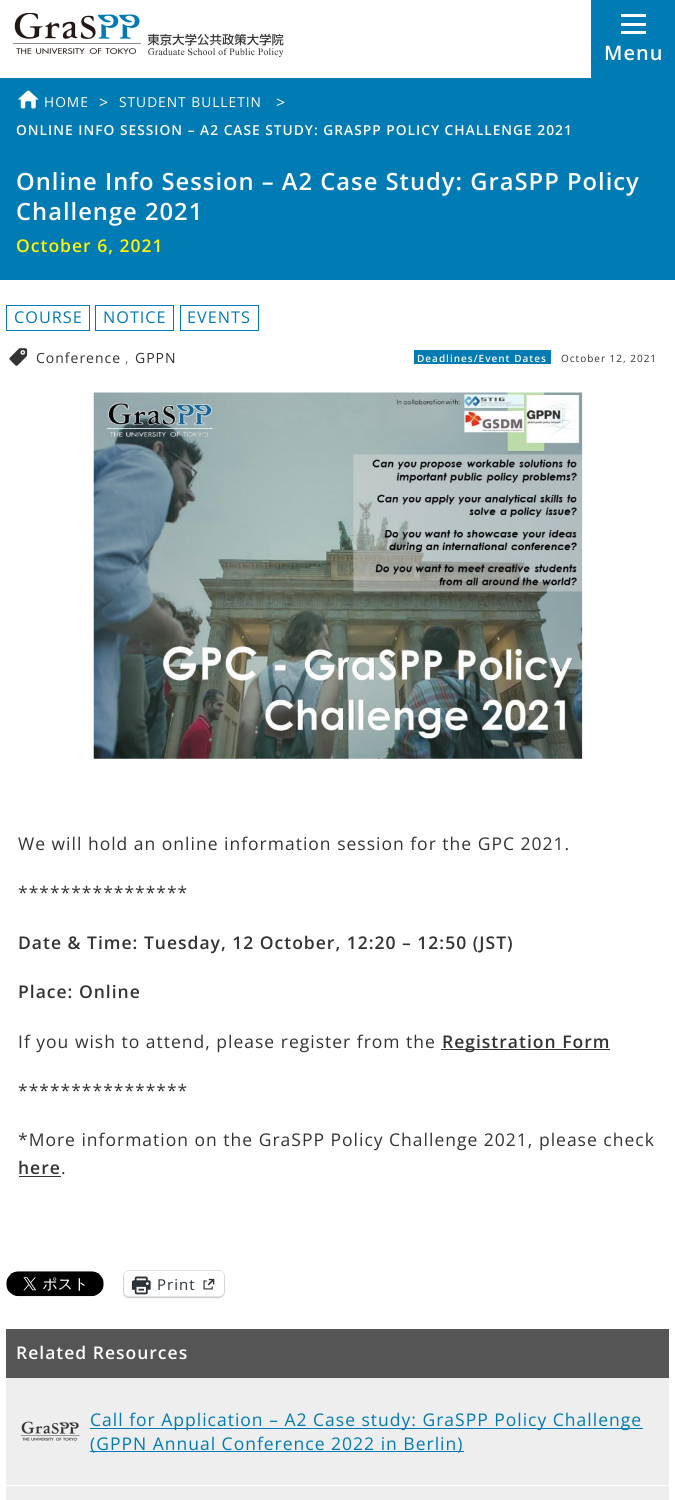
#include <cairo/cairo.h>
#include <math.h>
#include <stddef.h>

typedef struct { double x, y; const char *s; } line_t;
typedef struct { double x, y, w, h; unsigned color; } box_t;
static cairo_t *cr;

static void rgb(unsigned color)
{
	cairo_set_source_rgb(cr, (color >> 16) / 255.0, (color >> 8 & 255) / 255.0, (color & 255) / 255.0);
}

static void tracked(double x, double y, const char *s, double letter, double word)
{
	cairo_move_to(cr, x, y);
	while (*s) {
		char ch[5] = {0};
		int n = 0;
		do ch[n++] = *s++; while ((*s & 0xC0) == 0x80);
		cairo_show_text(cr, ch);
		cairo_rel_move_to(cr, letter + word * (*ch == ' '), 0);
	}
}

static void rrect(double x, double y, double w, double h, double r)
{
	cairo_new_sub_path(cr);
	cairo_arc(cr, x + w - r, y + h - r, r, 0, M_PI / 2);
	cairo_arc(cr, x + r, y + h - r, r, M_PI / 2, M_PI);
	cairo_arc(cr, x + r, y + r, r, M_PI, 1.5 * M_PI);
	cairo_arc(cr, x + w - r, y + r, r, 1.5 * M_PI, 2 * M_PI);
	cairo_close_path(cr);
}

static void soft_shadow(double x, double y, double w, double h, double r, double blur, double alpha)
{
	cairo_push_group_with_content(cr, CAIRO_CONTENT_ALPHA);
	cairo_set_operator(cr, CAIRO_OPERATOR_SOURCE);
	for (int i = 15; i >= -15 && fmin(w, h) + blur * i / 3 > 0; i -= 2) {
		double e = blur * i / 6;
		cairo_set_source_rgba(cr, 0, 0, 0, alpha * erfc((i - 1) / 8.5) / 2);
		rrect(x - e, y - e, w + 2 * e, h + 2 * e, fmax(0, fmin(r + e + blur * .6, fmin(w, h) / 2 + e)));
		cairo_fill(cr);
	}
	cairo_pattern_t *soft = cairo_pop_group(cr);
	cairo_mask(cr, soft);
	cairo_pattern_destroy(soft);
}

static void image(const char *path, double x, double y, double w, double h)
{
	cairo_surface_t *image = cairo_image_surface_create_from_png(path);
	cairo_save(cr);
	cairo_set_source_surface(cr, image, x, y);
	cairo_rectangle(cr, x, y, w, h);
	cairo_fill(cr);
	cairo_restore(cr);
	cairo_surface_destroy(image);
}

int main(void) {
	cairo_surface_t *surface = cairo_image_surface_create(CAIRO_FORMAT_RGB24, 675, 1500);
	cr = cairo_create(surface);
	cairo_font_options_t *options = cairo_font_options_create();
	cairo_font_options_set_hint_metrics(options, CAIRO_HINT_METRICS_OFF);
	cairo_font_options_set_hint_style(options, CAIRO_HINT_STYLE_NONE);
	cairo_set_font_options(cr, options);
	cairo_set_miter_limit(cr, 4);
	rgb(0xffffff);
	cairo_paint(cr);
	image("img/1.png", 13, 13, 128, 41);
	image("img/2.png", 148, 34, 136, 23);
	{
		static const box_t items[] = {
			{591, 0, 84, 78, 0x007bb4},
			{621, 31, 25, 3, 0xfefefe},
			{621, 23, 25, 3, 0xfefefe},
			{621, 14, 25, 3, 0xfefefe},
			{0, 78, 675, 202, 0x007bb4},
		};
		for (size_t i = 0; i < sizeof items / sizeof *items; i++) {
			rgb(items[i].color);
			cairo_rectangle(cr, items[i].x, items[i].y, items[i].w, items[i].h);
			cairo_fill(cr);
		}
	}
	image("img/3.png", 17, 90, 22, 19);
	cairo_rectangle(cr, 6.5, 305.5, 83, 25);
	cairo_set_line_width(cr, 1);
	cairo_stroke(cr);
	cairo_rectangle(cr, 95.5, 305.5, 78, 25);
	cairo_stroke(cr);
	cairo_rectangle(cr, 180.5, 305.5, 78, 25);
	cairo_stroke(cr);
	image("img/4.png", 9, 348, 19, 18);
	cairo_rectangle(cr, 414, 350, 137, 14);
	cairo_fill(cr);
	image("img/5.png", 93, 392, 490, 367);
	rgb(0x333333);
	cairo_rectangle(cr, 441, 1049, 169, 1);
	cairo_fill(cr);
	cairo_rectangle(cr, 19, 1176, 42, 1);
	cairo_fill(cr);
	image("img/6.png", 6, 1271, 98, 26);
	rrect(123.5, 1270.5, 101, 27, 5.5);
	rgb(0xe0e0e0);
	cairo_stroke(cr);
	rgb(0x000000);
	soft_shadow(124, 1273, 100, 25, 5, 1, 0.12);
	rgb(0xffffff);
	rrect(124, 1271, 100, 25, 5);
	cairo_fill(cr);
	image("img/7.png", 131, 1276, 20, 19);
	image("img/8.png", 203, 1278, 12, 12);
	rgb(0x555555);
	cairo_rectangle(cr, 6, 1329, 663, 49);
	cairo_fill(cr);
	rgb(0xeeeeee);
	cairo_rectangle(cr, 6, 1378, 663, 107);
	cairo_fill(cr);
	image("img/9.png", 20, 1421, 60, 20);
	{
		static const box_t items[] = {
			{90, 1428, 553, 1, 0x007bb4},
			{90, 1451, 374, 1, 0x007bb4},
			{6, 1486, 663, 14, 0xeeeeee},
		};
		for (size_t i = 0; i < sizeof items / sizeof *items; i++) {
			rgb(items[i].color);
			cairo_rectangle(cr, items[i].x, items[i].y, items[i].w, items[i].h);
			cairo_fill(cr);
		}
	}
	cairo_select_font_face(cr, "Open Sans SemiBold", CAIRO_FONT_SLANT_NORMAL, CAIRO_FONT_WEIGHT_NORMAL);
	cairo_set_font_size(cr, 20);
	rgb(0xfefefe);
	tracked(604, 60, "Menu", 1, 0);
	cairo_select_font_face(cr, "Open Sans", CAIRO_FONT_SLANT_NORMAL, CAIRO_FONT_WEIGHT_NORMAL);
	cairo_set_font_size(cr, 13.75);
	tracked(44, 107, "HOME", 1, 0);
	cairo_set_font_size(cr, 16);
	tracked(99, 108, ">", 1, 0);
	cairo_set_font_size(cr, 13.75);
	tracked(119, 107, "STUDENT BULLETIN", 1, 0);
	cairo_set_font_size(cr, 16);
	tracked(276, 108, ">", 1, 0);
	cairo_select_font_face(cr, "Open Sans SemiBold", CAIRO_FONT_SLANT_NORMAL, CAIRO_FONT_WEIGHT_NORMAL);
	cairo_set_font_size(cr, 13.75);
	tracked(16, 135, "ONLINE INFO SESSION – A2 CASE STUDY: GRASPP POLICY CHALLENGE 2021", 1, 0);
	cairo_set_font_size(cr, 23.75);
	tracked(16, 190, "Online Info Session – A2 Case Study: GraSPP Policy", 1, 0);
	tracked(16, 220, "Challenge 2021", 1, 0);
	cairo_set_font_size(cr, 17.5);
	rgb(0xfff600);
	tracked(16, 252, "October 6, 2021", 1, 0);
	cairo_select_font_face(cr, "Open Sans", CAIRO_FONT_SLANT_NORMAL, CAIRO_FONT_WEIGHT_NORMAL);
	cairo_set_font_size(cr, 16.25);
	rgb(0x007bb4);
	{
		static const line_t items[] = {
			{14, 323, "COURSE"},
			{103, 323, "NOTICE"},
			{187, 323, "EVENTS"},
		};
		for (size_t i = 0; i < sizeof items / sizeof *items; i++) {
			tracked(items[i].x, items[i].y, items[i].s, 1, 0);
		}
	}
	cairo_set_font_size(cr, 14);
	rgb(0x333333);
	tracked(36, 363, "Conference", 1, 0);
	rgb(0x808080);
	tracked(125, 363, ",", 1, 0);
	rgb(0x333333);
	tracked(135, 363, "GPPN", 1, 0);
	cairo_select_font_face(cr, "Open Sans SemiBold", CAIRO_FONT_SLANT_NORMAL, CAIRO_FONT_WEIGHT_NORMAL);
	cairo_set_font_size(cr, 10);
	rgb(0xfefefe);
	tracked(417, 362, "Deadlines/Event Dates", 1, 0);
	cairo_select_font_face(cr, "Open Sans", CAIRO_FONT_SLANT_NORMAL, CAIRO_FONT_WEIGHT_NORMAL);
	rgb(0x333333);
	tracked(561, 362, "October 12, 2021", 1, 0);
	cairo_set_font_size(cr, 17.5);
	tracked(18, 850, "We will hold an online information session for the GPC 2021.", 1, 0);
	tracked(18, 899, "****************", 1, 0);
	cairo_select_font_face(cr, "Open Sans SemiBold", CAIRO_FONT_SLANT_NORMAL, CAIRO_FONT_WEIGHT_NORMAL);
	tracked(18, 949, "Date & Time: Tuesday, 12 October, 12:20 – 12:50 (JST)", 1, 0);
	tracked(18, 998, "Place: Online", 1, 0);
	cairo_select_font_face(cr, "Open Sans", CAIRO_FONT_SLANT_NORMAL, CAIRO_FONT_WEIGHT_NORMAL);
	tracked(18, 1048, "If you wish to attend, please register from the", 1, 0);
	cairo_select_font_face(cr, "Open Sans SemiBold", CAIRO_FONT_SLANT_NORMAL, CAIRO_FONT_WEIGHT_NORMAL);
	tracked(442, 1048, "Registration Form", 1, 0);
	cairo_select_font_face(cr, "Open Sans", CAIRO_FONT_SLANT_NORMAL, CAIRO_FONT_WEIGHT_NORMAL);
	tracked(18, 1097, "****************", 1, 0);
	tracked(18, 1146, "*More information on the GraSPP Policy Challenge 2021, please check", 1, 0);
	cairo_select_font_face(cr, "Open Sans SemiBold", CAIRO_FONT_SLANT_NORMAL, CAIRO_FONT_WEIGHT_NORMAL);
	tracked(18, 1174, "here", 1, 0);
	cairo_select_font_face(cr, "Open Sans", CAIRO_FONT_SLANT_NORMAL, CAIRO_FONT_WEIGHT_NORMAL);
	tracked(61, 1174, ".", 1, 0);
	cairo_set_font_size(cr, 15);
	rgb(0x2c3338);
	tracked(157, 1290, "Print", 1, 0);
	cairo_select_font_face(cr, "Open Sans SemiBold", CAIRO_FONT_SLANT_NORMAL, CAIRO_FONT_WEIGHT_NORMAL);
	cairo_set_font_size(cr, 17.5);
	rgb(0xfefefe);
	tracked(16, 1359, "Related Resources", 1, 0);
	cairo_select_font_face(cr, "Open Sans", CAIRO_FONT_SLANT_NORMAL, CAIRO_FONT_WEIGHT_NORMAL);
	rgb(0x007bb4);
	tracked(90, 1426, "Call for Application – A2 Case study: GraSPP Policy Challenge", 1, 0);
	tracked(90, 1450, "(GPPN Annual Conference 2022 in Berlin)", 1, 0);
	cairo_surface_write_to_png(surface, "page.png");
	cairo_font_options_destroy(options);
	cairo_destroy(cr);
	cairo_surface_destroy(surface);
	return 0;
}
